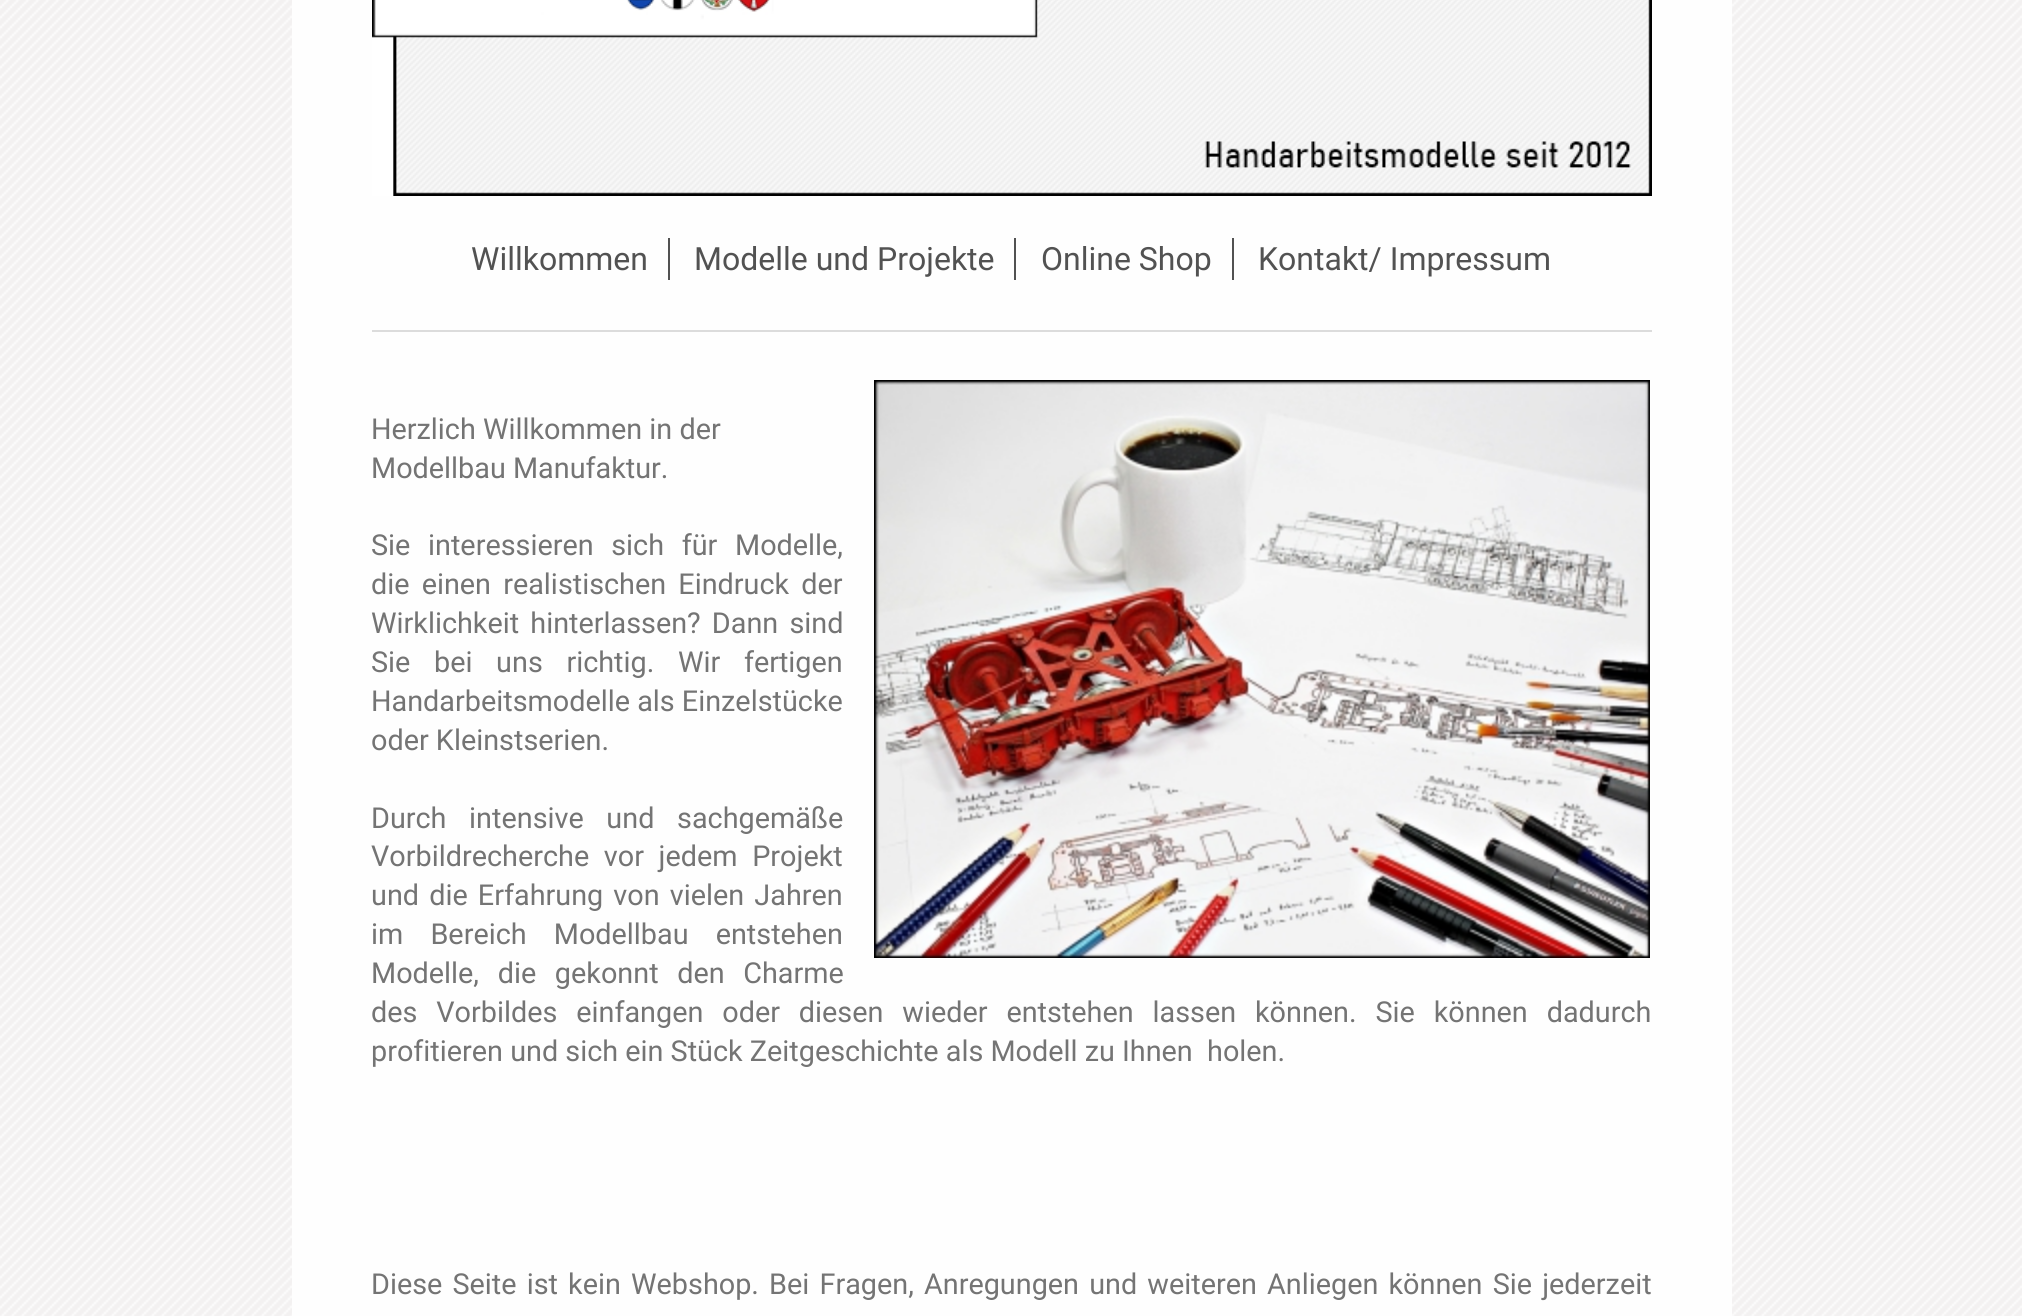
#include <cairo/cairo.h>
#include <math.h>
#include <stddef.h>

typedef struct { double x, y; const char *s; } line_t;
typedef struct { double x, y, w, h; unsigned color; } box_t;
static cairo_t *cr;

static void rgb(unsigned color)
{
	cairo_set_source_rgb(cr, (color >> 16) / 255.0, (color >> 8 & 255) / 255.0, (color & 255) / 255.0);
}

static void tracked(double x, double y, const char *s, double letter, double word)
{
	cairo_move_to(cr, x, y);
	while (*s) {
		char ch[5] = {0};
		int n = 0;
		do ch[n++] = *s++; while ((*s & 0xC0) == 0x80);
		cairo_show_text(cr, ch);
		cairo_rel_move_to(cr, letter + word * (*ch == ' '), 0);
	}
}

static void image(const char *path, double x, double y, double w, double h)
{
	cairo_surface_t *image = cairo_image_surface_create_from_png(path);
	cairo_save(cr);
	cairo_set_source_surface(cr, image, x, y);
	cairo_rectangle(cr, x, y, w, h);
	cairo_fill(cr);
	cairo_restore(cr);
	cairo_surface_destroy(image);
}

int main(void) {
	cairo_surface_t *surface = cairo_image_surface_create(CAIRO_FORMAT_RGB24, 2022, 1316);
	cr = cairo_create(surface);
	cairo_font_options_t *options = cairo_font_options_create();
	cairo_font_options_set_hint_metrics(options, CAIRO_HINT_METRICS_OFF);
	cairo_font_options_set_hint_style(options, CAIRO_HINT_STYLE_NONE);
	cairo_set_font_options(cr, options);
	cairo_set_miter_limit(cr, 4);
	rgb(0xf3f1f1);
	cairo_paint(cr);
	image("img/1.png", 0, 0, 2022, 1316);
	rgb(0xfefefe);
	cairo_rectangle(cr, 292, 0, 1440, 1316);
	cairo_fill(cr);
	image("img/2.png", 372, 0, 1280, 196);
	{
		static const box_t items[] = {
			{372, 330, 1280, 2, 0xdcdcdc},
			{668, 238, 2, 42, 0x525252},
			{1014, 238, 2, 42, 0x525252},
			{1232, 238, 2, 42, 0x525252},
		};
		for (size_t i = 0; i < sizeof items / sizeof *items; i++) {
			rgb(items[i].color);
			cairo_rectangle(cr, items[i].x, items[i].y, items[i].w, items[i].h);
			cairo_fill(cr);
		}
	}
	image("img/3.png", 874, 380, 776, 578);
	cairo_select_font_face(cr, "Roboto", CAIRO_FONT_SLANT_NORMAL, CAIRO_FONT_WEIGHT_NORMAL);
	cairo_set_font_size(cr, 32);
	{
		static const line_t items[] = {
			{471, 270, "Willkommen"},
			{694, 270, "Modelle und Projekte"},
			{1041, 270, "Online Shop"},
			{1258, 270, "Kontakt/ Impressum"},
		};
		for (size_t i = 0; i < sizeof items / sizeof *items; i++) {
			cairo_move_to(cr, items[i].x, items[i].y);
			cairo_show_text(cr, items[i].s);
		}
	}
	cairo_set_font_size(cr, 28.8);
	rgb(0x747474);
	cairo_move_to(cr, 371, 439);
	cairo_show_text(cr, "Herzlich Willkommen in der");
	cairo_move_to(cr, 371, 478);
	cairo_show_text(cr, "Modellbau Manufaktur.");
	tracked(371, 555, "Sie interessieren sich für Modelle,", 0, 10.5);
	tracked(371, 594, "die einen realistischen Eindruck der", 0, 5);
	tracked(371, 633, "Wirklichkeit hinterlassen? Dann sind", 0, 4);
	tracked(371, 672, "Sie bei uns richtig. Wir fertigen", 0, 16.5);
	cairo_move_to(cr, 371, 711);
	cairo_show_text(cr, "Handarbeitsmodelle als Einzelstücke");
	cairo_move_to(cr, 371, 750);
	cairo_show_text(cr, "oder Kleinstserien.");
	tracked(371, 828, "Durch intensive und sachgemäße", 0, 15.5);
	tracked(371, 866, "Vorbildrecherche vor jedem Projekt", 0, 7.5);
	tracked(371, 905, "und die Erfahrung von vielen Jahren", 0, 3);
	tracked(371, 944, "im Bereich Modellbau entstehen", 0, 20);
	tracked(371, 983, "Modelle, die gekonnt den Charme", 0, 11.5);
	tracked(371, 1022, "des Vorbildes einfangen oder diesen wieder entstehen lassen können. Sie können dadurch", 0, 11.75);
	cairo_move_to(cr, 371, 1061);
	cairo_show_text(cr, "profitieren und sich ein Stück Zeitgeschichte als Modell zu Ihnen  holen.");
	tracked(371, 1294, "Diese Seite ist kein Webshop. Bei Fragen, Anregungen und weiteren Anliegen können Sie jederzeit", 0, 3);
	cairo_surface_write_to_png(surface, "page.png");
	cairo_font_options_destroy(options);
	cairo_destroy(cr);
	cairo_surface_destroy(surface);
	return 0;
}
